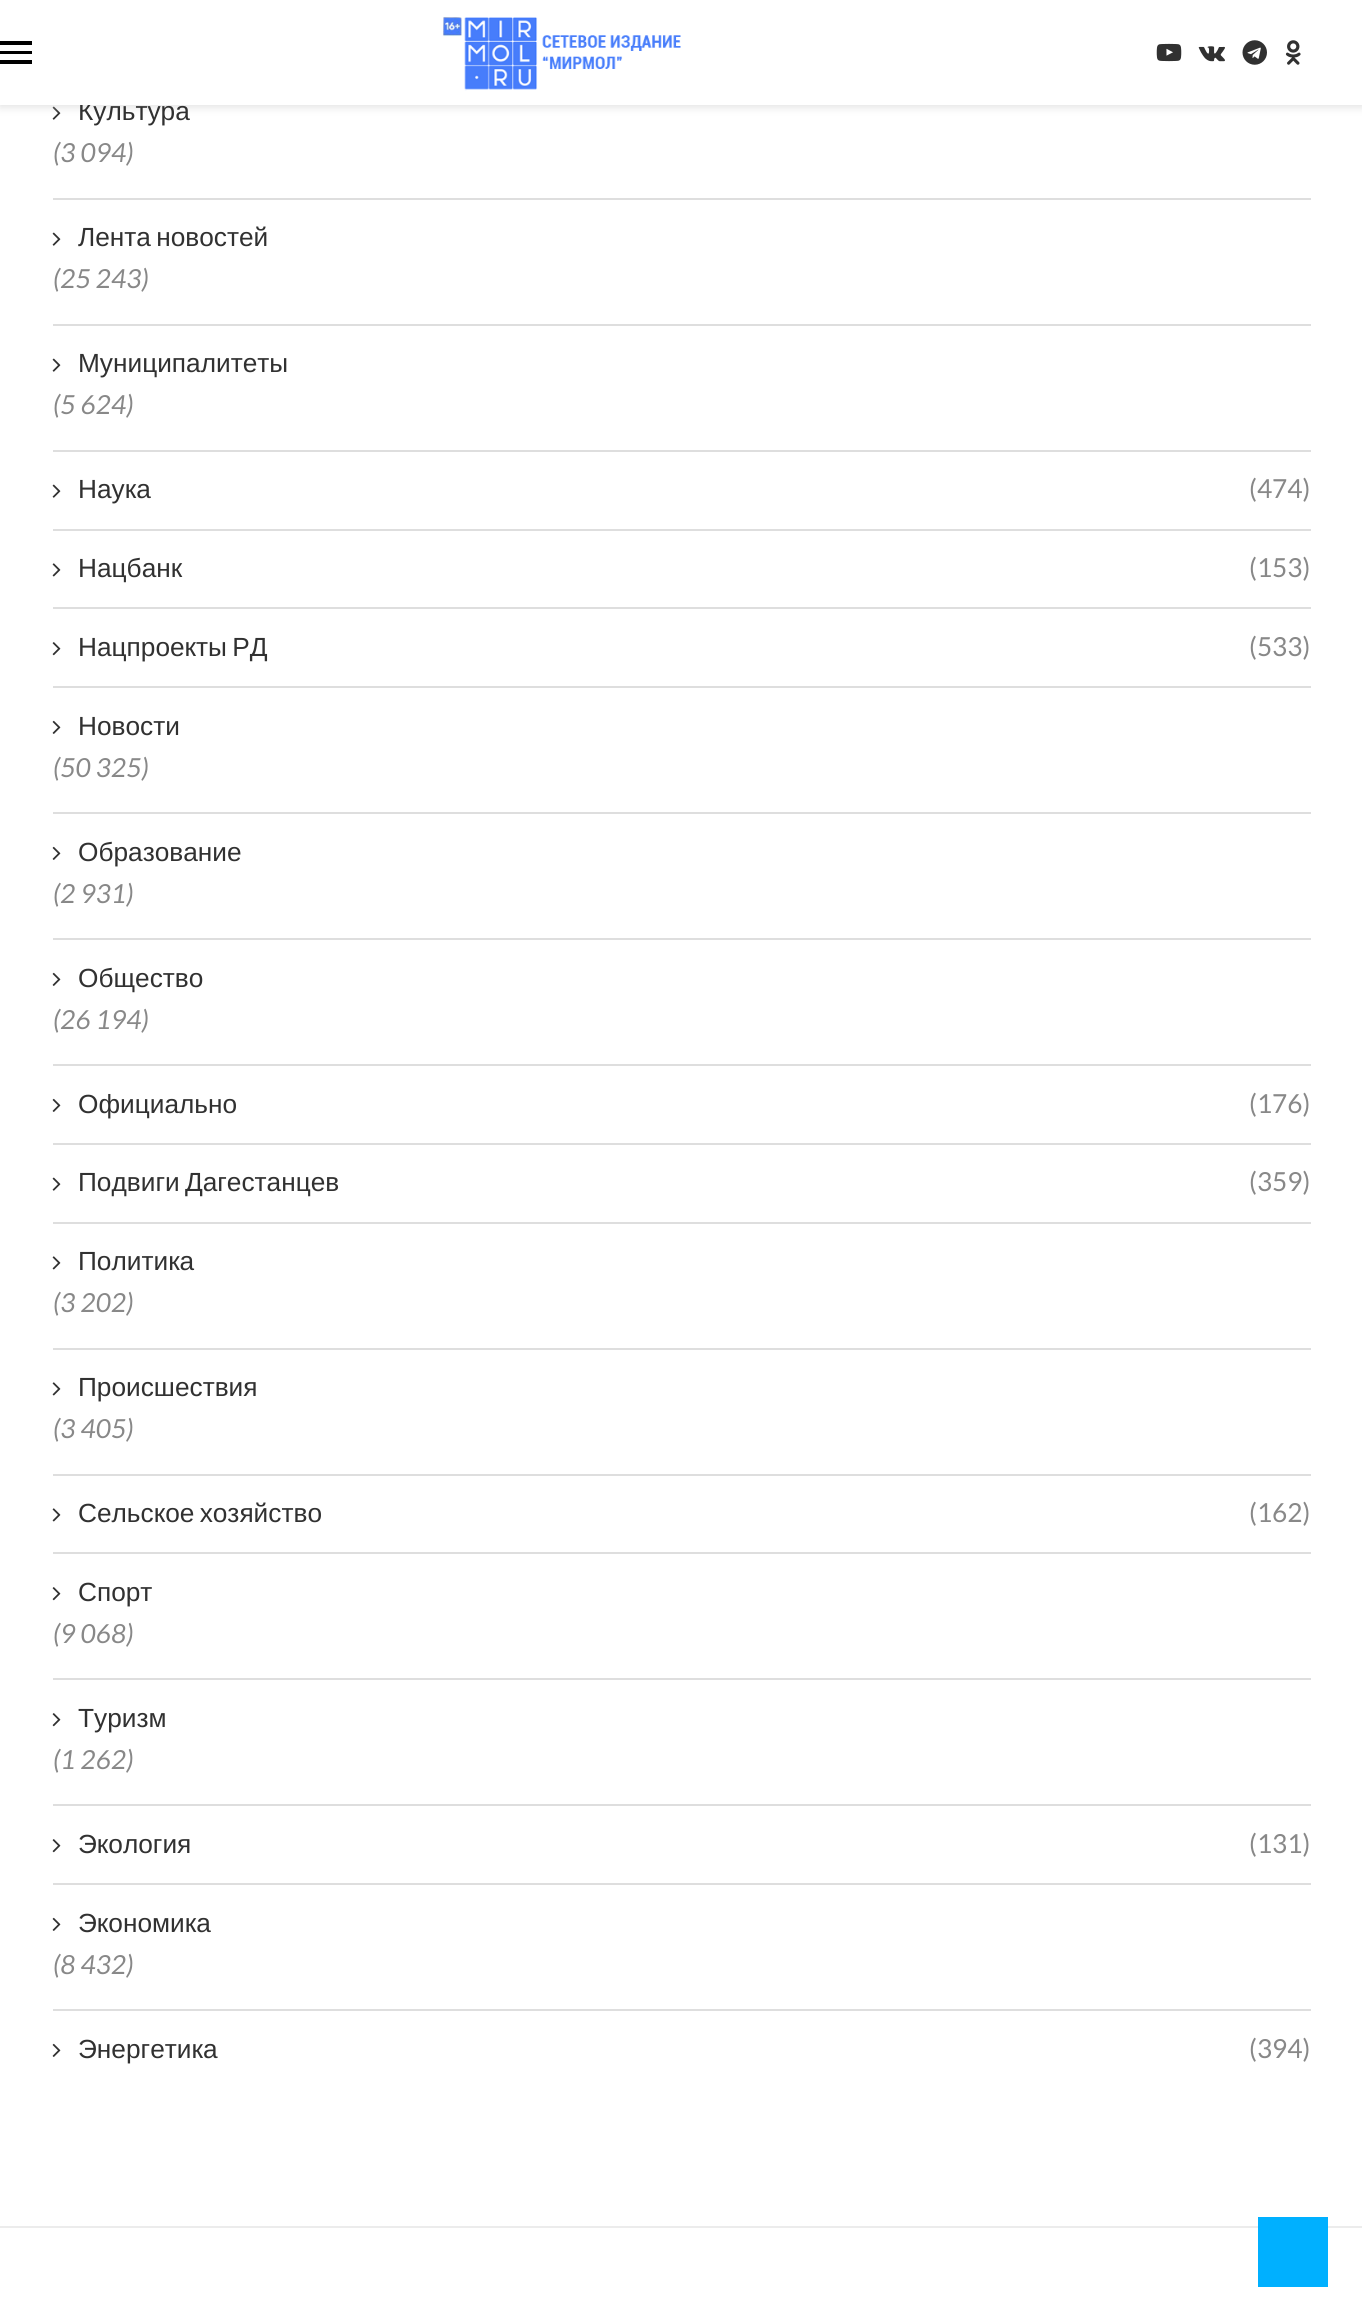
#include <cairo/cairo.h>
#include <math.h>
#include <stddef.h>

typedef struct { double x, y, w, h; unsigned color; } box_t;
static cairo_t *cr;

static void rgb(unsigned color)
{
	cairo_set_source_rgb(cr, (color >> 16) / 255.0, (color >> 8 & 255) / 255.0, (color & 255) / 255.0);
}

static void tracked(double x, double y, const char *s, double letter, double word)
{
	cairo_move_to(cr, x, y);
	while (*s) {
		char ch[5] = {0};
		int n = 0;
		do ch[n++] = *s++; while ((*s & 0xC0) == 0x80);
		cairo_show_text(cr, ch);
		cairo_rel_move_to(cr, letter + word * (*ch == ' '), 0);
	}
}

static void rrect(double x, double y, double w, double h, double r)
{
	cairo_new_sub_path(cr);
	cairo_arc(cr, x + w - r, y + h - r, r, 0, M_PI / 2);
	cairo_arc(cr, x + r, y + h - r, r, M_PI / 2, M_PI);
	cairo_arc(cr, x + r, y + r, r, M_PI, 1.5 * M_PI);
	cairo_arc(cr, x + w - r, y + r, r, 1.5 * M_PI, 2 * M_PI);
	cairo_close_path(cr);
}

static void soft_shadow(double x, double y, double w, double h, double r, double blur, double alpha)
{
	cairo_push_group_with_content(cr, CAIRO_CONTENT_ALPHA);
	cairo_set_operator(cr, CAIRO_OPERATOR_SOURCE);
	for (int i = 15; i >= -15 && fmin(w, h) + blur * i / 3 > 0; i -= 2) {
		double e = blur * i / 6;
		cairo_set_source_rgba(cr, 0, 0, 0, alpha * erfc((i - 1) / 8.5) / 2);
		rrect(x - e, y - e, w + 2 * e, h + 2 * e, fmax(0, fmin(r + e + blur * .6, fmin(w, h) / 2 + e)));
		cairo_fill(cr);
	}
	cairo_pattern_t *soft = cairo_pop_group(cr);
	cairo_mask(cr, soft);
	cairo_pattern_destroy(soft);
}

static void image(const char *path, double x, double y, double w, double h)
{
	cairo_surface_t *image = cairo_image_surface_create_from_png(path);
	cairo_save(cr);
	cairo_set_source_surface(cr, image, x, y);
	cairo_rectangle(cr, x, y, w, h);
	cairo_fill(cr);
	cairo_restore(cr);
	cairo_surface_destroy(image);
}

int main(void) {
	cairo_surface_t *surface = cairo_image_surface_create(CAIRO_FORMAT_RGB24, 1362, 2321);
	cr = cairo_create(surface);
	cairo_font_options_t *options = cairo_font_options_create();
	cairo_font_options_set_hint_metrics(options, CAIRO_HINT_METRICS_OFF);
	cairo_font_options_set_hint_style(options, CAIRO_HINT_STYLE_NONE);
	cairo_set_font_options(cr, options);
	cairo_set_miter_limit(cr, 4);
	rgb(0xffffff);
	cairo_paint(cr);
	image("img/6.png", 52, 106, 9, 14);
	rgb(0xbebebe);
	soft_shadow(0, 2, 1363, 105, 0, 4.5, 0.46);
	rgb(0xdedede);
	cairo_rectangle(cr, 53, 198, 1258, 2);
	cairo_fill(cr);
	cairo_rectangle(cr, 53, 324, 1258, 2);
	cairo_fill(cr);
	image("img/6.png", 52, 232, 9, 14);
	cairo_rectangle(cr, 53, 450, 1258, 2);
	cairo_fill(cr);
	image("img/6.png", 52, 358, 9, 14);
	cairo_rectangle(cr, 53, 529, 1258, 2);
	cairo_fill(cr);
	image("img/6.png", 52, 484, 9, 14);
	cairo_rectangle(cr, 53, 607, 1258, 2);
	cairo_fill(cr);
	image("img/7.png", 52, 563, 9, 14);
	cairo_rectangle(cr, 53, 686, 1258, 2);
	cairo_fill(cr);
	image("img/8.png", 52, 642, 9, 14);
	cairo_rectangle(cr, 53, 812, 1258, 2);
	cairo_fill(cr);
	image("img/9.png", 52, 720, 9, 14);
	cairo_rectangle(cr, 53, 938, 1258, 2);
	cairo_fill(cr);
	image("img/9.png", 52, 846, 9, 14);
	cairo_rectangle(cr, 53, 1064, 1258, 2);
	cairo_fill(cr);
	image("img/9.png", 52, 972, 9, 14);
	cairo_rectangle(cr, 53, 1143, 1258, 2);
	cairo_fill(cr);
	image("img/9.png", 52, 1098, 9, 14);
	cairo_rectangle(cr, 53, 1222, 1258, 2);
	cairo_fill(cr);
	image("img/6.png", 52, 1177, 9, 14);
	cairo_rectangle(cr, 53, 1348, 1258, 2);
	cairo_fill(cr);
	image("img/7.png", 52, 1256, 9, 14);
	cairo_rectangle(cr, 53, 1474, 1258, 2);
	cairo_fill(cr);
	image("img/7.png", 52, 1382, 9, 14);
	cairo_rectangle(cr, 53, 1552, 1258, 2);
	cairo_fill(cr);
	image("img/7.png", 52, 1508, 9, 14);
	cairo_rectangle(cr, 53, 1678, 1258, 2);
	cairo_fill(cr);
	image("img/8.png", 52, 1587, 9, 14);
	cairo_rectangle(cr, 53, 1804, 1258, 2);
	cairo_fill(cr);
	image("img/8.png", 52, 1713, 9, 14);
	cairo_rectangle(cr, 53, 1883, 1258, 2);
	cairo_fill(cr);
	image("img/8.png", 52, 1839, 9, 14);
	cairo_rectangle(cr, 53, 2009, 1258, 2);
	cairo_fill(cr);
	image("img/9.png", 52, 1917, 9, 14);
	image("img/9.png", 52, 2043, 9, 14);
	rgb(0xececec);
	cairo_rectangle(cr, 0, 2226, 1362, 2);
	cairo_fill(cr);
	rgb(0x00b0ff);
	cairo_rectangle(cr, 1258, 2217, 70, 70);
	cairo_fill(cr);
	cairo_select_font_face(cr, "Liberation Sans", CAIRO_FONT_SLANT_NORMAL, CAIRO_FONT_WEIGHT_NORMAL);
	cairo_set_font_size(cr, 26.25);
	rgb(0x313131);
	cairo_move_to(cr, 78, 120);
	cairo_show_text(cr, "Культура");
	rgb(0xffffff);
	cairo_rectangle(cr, 0, 0, 1362, 105);
	cairo_fill(cr);
	image("img/5.png", 1285, 40, 16, 25);
	image("img/4.png", 1242, 40, 25, 25);
	image("img/3.png", 1198, 46, 27, 16);
	image("img/2.png", 1156, 43, 26, 19);
	{
		static const box_t items[] = {
			{0, 60, 32, 4, 0x000000},
			{0, 51, 32, 3, 0x000000},
			{0, 41, 32, 4, 0x000000},
		};
		for (size_t i = 0; i < sizeof items / sizeof *items; i++) {
			rgb(items[i].color);
			cairo_rectangle(cr, items[i].x, items[i].y, items[i].w, items[i].h);
			cairo_fill(cr);
		}
	}
	image("img/1.png", 442, 16, 239, 75);
	cairo_select_font_face(cr, "Lato", CAIRO_FONT_SLANT_ITALIC, CAIRO_FONT_WEIGHT_NORMAL);
	rgb(0x888888);
	cairo_move_to(cr, 53, 162);
	cairo_show_text(cr, "(3 094)");
	cairo_select_font_face(cr, "Liberation Sans", CAIRO_FONT_SLANT_NORMAL, CAIRO_FONT_WEIGHT_NORMAL);
	rgb(0x313131);
	tracked(78, 246, "Лента новостей", 0, -2);
	cairo_select_font_face(cr, "Lato", CAIRO_FONT_SLANT_ITALIC, CAIRO_FONT_WEIGHT_NORMAL);
	rgb(0x888888);
	cairo_move_to(cr, 53, 288);
	cairo_show_text(cr, "(25 243)");
	cairo_select_font_face(cr, "Liberation Sans", CAIRO_FONT_SLANT_NORMAL, CAIRO_FONT_WEIGHT_NORMAL);
	rgb(0x313131);
	cairo_move_to(cr, 78, 372);
	cairo_show_text(cr, "Муниципалитеты");
	cairo_select_font_face(cr, "Lato", CAIRO_FONT_SLANT_ITALIC, CAIRO_FONT_WEIGHT_NORMAL);
	rgb(0x888888);
	cairo_move_to(cr, 53, 414);
	cairo_show_text(cr, "(5 624)");
	cairo_select_font_face(cr, "Liberation Sans", CAIRO_FONT_SLANT_NORMAL, CAIRO_FONT_WEIGHT_NORMAL);
	rgb(0x313131);
	cairo_move_to(cr, 78, 498);
	cairo_show_text(cr, "Наука");
	cairo_select_font_face(cr, "Lato", CAIRO_FONT_SLANT_NORMAL, CAIRO_FONT_WEIGHT_NORMAL);
	rgb(0x888888);
	cairo_move_to(cr, 1249, 498);
	cairo_show_text(cr, "(474)");
	cairo_select_font_face(cr, "Liberation Sans", CAIRO_FONT_SLANT_NORMAL, CAIRO_FONT_WEIGHT_NORMAL);
	rgb(0x313131);
	cairo_move_to(cr, 78, 577);
	cairo_show_text(cr, "Нацбанк");
	cairo_select_font_face(cr, "Lato", CAIRO_FONT_SLANT_NORMAL, CAIRO_FONT_WEIGHT_NORMAL);
	rgb(0x888888);
	cairo_move_to(cr, 1249, 577);
	cairo_show_text(cr, "(153)");
	cairo_select_font_face(cr, "Liberation Sans", CAIRO_FONT_SLANT_NORMAL, CAIRO_FONT_WEIGHT_NORMAL);
	rgb(0x313131);
	tracked(78, 656, "Нацпроекты РД", 0, -2);
	cairo_select_font_face(cr, "Lato", CAIRO_FONT_SLANT_NORMAL, CAIRO_FONT_WEIGHT_NORMAL);
	rgb(0x888888);
	cairo_move_to(cr, 1249, 656);
	cairo_show_text(cr, "(533)");
	cairo_select_font_face(cr, "Liberation Sans", CAIRO_FONT_SLANT_NORMAL, CAIRO_FONT_WEIGHT_NORMAL);
	rgb(0x313131);
	cairo_move_to(cr, 78, 735);
	cairo_show_text(cr, "Новости");
	cairo_select_font_face(cr, "Lato", CAIRO_FONT_SLANT_ITALIC, CAIRO_FONT_WEIGHT_NORMAL);
	rgb(0x888888);
	cairo_move_to(cr, 53, 777);
	cairo_show_text(cr, "(50 325)");
	cairo_select_font_face(cr, "Liberation Sans", CAIRO_FONT_SLANT_NORMAL, CAIRO_FONT_WEIGHT_NORMAL);
	rgb(0x313131);
	cairo_move_to(cr, 78, 861);
	cairo_show_text(cr, "Образование");
	cairo_select_font_face(cr, "Lato", CAIRO_FONT_SLANT_ITALIC, CAIRO_FONT_WEIGHT_NORMAL);
	rgb(0x888888);
	cairo_move_to(cr, 53, 903);
	cairo_show_text(cr, "(2 931)");
	cairo_select_font_face(cr, "Liberation Sans", CAIRO_FONT_SLANT_NORMAL, CAIRO_FONT_WEIGHT_NORMAL);
	rgb(0x313131);
	cairo_move_to(cr, 78, 987);
	cairo_show_text(cr, "Общество");
	cairo_select_font_face(cr, "Lato", CAIRO_FONT_SLANT_ITALIC, CAIRO_FONT_WEIGHT_NORMAL);
	rgb(0x888888);
	cairo_move_to(cr, 53, 1029);
	cairo_show_text(cr, "(26 194)");
	cairo_select_font_face(cr, "Liberation Sans", CAIRO_FONT_SLANT_NORMAL, CAIRO_FONT_WEIGHT_NORMAL);
	rgb(0x313131);
	cairo_move_to(cr, 78, 1113);
	cairo_show_text(cr, "Официально");
	cairo_select_font_face(cr, "Lato", CAIRO_FONT_SLANT_NORMAL, CAIRO_FONT_WEIGHT_NORMAL);
	rgb(0x888888);
	cairo_move_to(cr, 1249, 1113);
	cairo_show_text(cr, "(176)");
	cairo_select_font_face(cr, "Liberation Sans", CAIRO_FONT_SLANT_NORMAL, CAIRO_FONT_WEIGHT_NORMAL);
	rgb(0x313131);
	tracked(78, 1191, "Подвиги Дагестанцев", 0, -2);
	cairo_select_font_face(cr, "Lato", CAIRO_FONT_SLANT_NORMAL, CAIRO_FONT_WEIGHT_NORMAL);
	rgb(0x888888);
	cairo_move_to(cr, 1249, 1191);
	cairo_show_text(cr, "(359)");
	cairo_select_font_face(cr, "Liberation Sans", CAIRO_FONT_SLANT_NORMAL, CAIRO_FONT_WEIGHT_NORMAL);
	rgb(0x313131);
	cairo_move_to(cr, 78, 1270);
	cairo_show_text(cr, "Политика");
	cairo_select_font_face(cr, "Lato", CAIRO_FONT_SLANT_ITALIC, CAIRO_FONT_WEIGHT_NORMAL);
	rgb(0x888888);
	cairo_move_to(cr, 53, 1312);
	cairo_show_text(cr, "(3 202)");
	cairo_select_font_face(cr, "Liberation Sans", CAIRO_FONT_SLANT_NORMAL, CAIRO_FONT_WEIGHT_NORMAL);
	rgb(0x313131);
	cairo_move_to(cr, 78, 1396);
	cairo_show_text(cr, "Происшествия");
	cairo_select_font_face(cr, "Lato", CAIRO_FONT_SLANT_ITALIC, CAIRO_FONT_WEIGHT_NORMAL);
	rgb(0x888888);
	cairo_move_to(cr, 53, 1438);
	cairo_show_text(cr, "(3 405)");
	cairo_select_font_face(cr, "Liberation Sans", CAIRO_FONT_SLANT_NORMAL, CAIRO_FONT_WEIGHT_NORMAL);
	rgb(0x313131);
	tracked(78, 1522, "Сельское хозяйство", 0, -2);
	cairo_select_font_face(cr, "Lato", CAIRO_FONT_SLANT_NORMAL, CAIRO_FONT_WEIGHT_NORMAL);
	rgb(0x888888);
	cairo_move_to(cr, 1249, 1522);
	cairo_show_text(cr, "(162)");
	cairo_select_font_face(cr, "Liberation Sans", CAIRO_FONT_SLANT_NORMAL, CAIRO_FONT_WEIGHT_NORMAL);
	rgb(0x313131);
	cairo_move_to(cr, 78, 1601);
	cairo_show_text(cr, "Спорт");
	cairo_select_font_face(cr, "Lato", CAIRO_FONT_SLANT_ITALIC, CAIRO_FONT_WEIGHT_NORMAL);
	rgb(0x888888);
	cairo_move_to(cr, 53, 1643);
	cairo_show_text(cr, "(9 068)");
	cairo_select_font_face(cr, "Liberation Sans", CAIRO_FONT_SLANT_NORMAL, CAIRO_FONT_WEIGHT_NORMAL);
	rgb(0x313131);
	cairo_move_to(cr, 78, 1727);
	cairo_show_text(cr, "Туризм");
	cairo_select_font_face(cr, "Lato", CAIRO_FONT_SLANT_ITALIC, CAIRO_FONT_WEIGHT_NORMAL);
	rgb(0x888888);
	cairo_move_to(cr, 53, 1769);
	cairo_show_text(cr, "(1 262)");
	cairo_select_font_face(cr, "Liberation Sans", CAIRO_FONT_SLANT_NORMAL, CAIRO_FONT_WEIGHT_NORMAL);
	rgb(0x313131);
	cairo_move_to(cr, 78, 1853);
	cairo_show_text(cr, "Экология");
	cairo_select_font_face(cr, "Lato", CAIRO_FONT_SLANT_NORMAL, CAIRO_FONT_WEIGHT_NORMAL);
	rgb(0x888888);
	cairo_move_to(cr, 1249, 1853);
	cairo_show_text(cr, "(131)");
	cairo_select_font_face(cr, "Liberation Sans", CAIRO_FONT_SLANT_NORMAL, CAIRO_FONT_WEIGHT_NORMAL);
	rgb(0x313131);
	cairo_move_to(cr, 78, 1932);
	cairo_show_text(cr, "Экономика");
	cairo_select_font_face(cr, "Lato", CAIRO_FONT_SLANT_ITALIC, CAIRO_FONT_WEIGHT_NORMAL);
	rgb(0x888888);
	cairo_move_to(cr, 53, 1974);
	cairo_show_text(cr, "(8 432)");
	cairo_select_font_face(cr, "Liberation Sans", CAIRO_FONT_SLANT_NORMAL, CAIRO_FONT_WEIGHT_NORMAL);
	rgb(0x313131);
	cairo_move_to(cr, 78, 2058);
	cairo_show_text(cr, "Энергетика");
	cairo_select_font_face(cr, "Lato", CAIRO_FONT_SLANT_NORMAL, CAIRO_FONT_WEIGHT_NORMAL);
	rgb(0x888888);
	cairo_move_to(cr, 1249, 2058);
	cairo_show_text(cr, "(394)");
	cairo_surface_write_to_png(surface, "page.png");
	cairo_font_options_destroy(options);
	cairo_destroy(cr);
	cairo_surface_destroy(surface);
	return 0;
}
